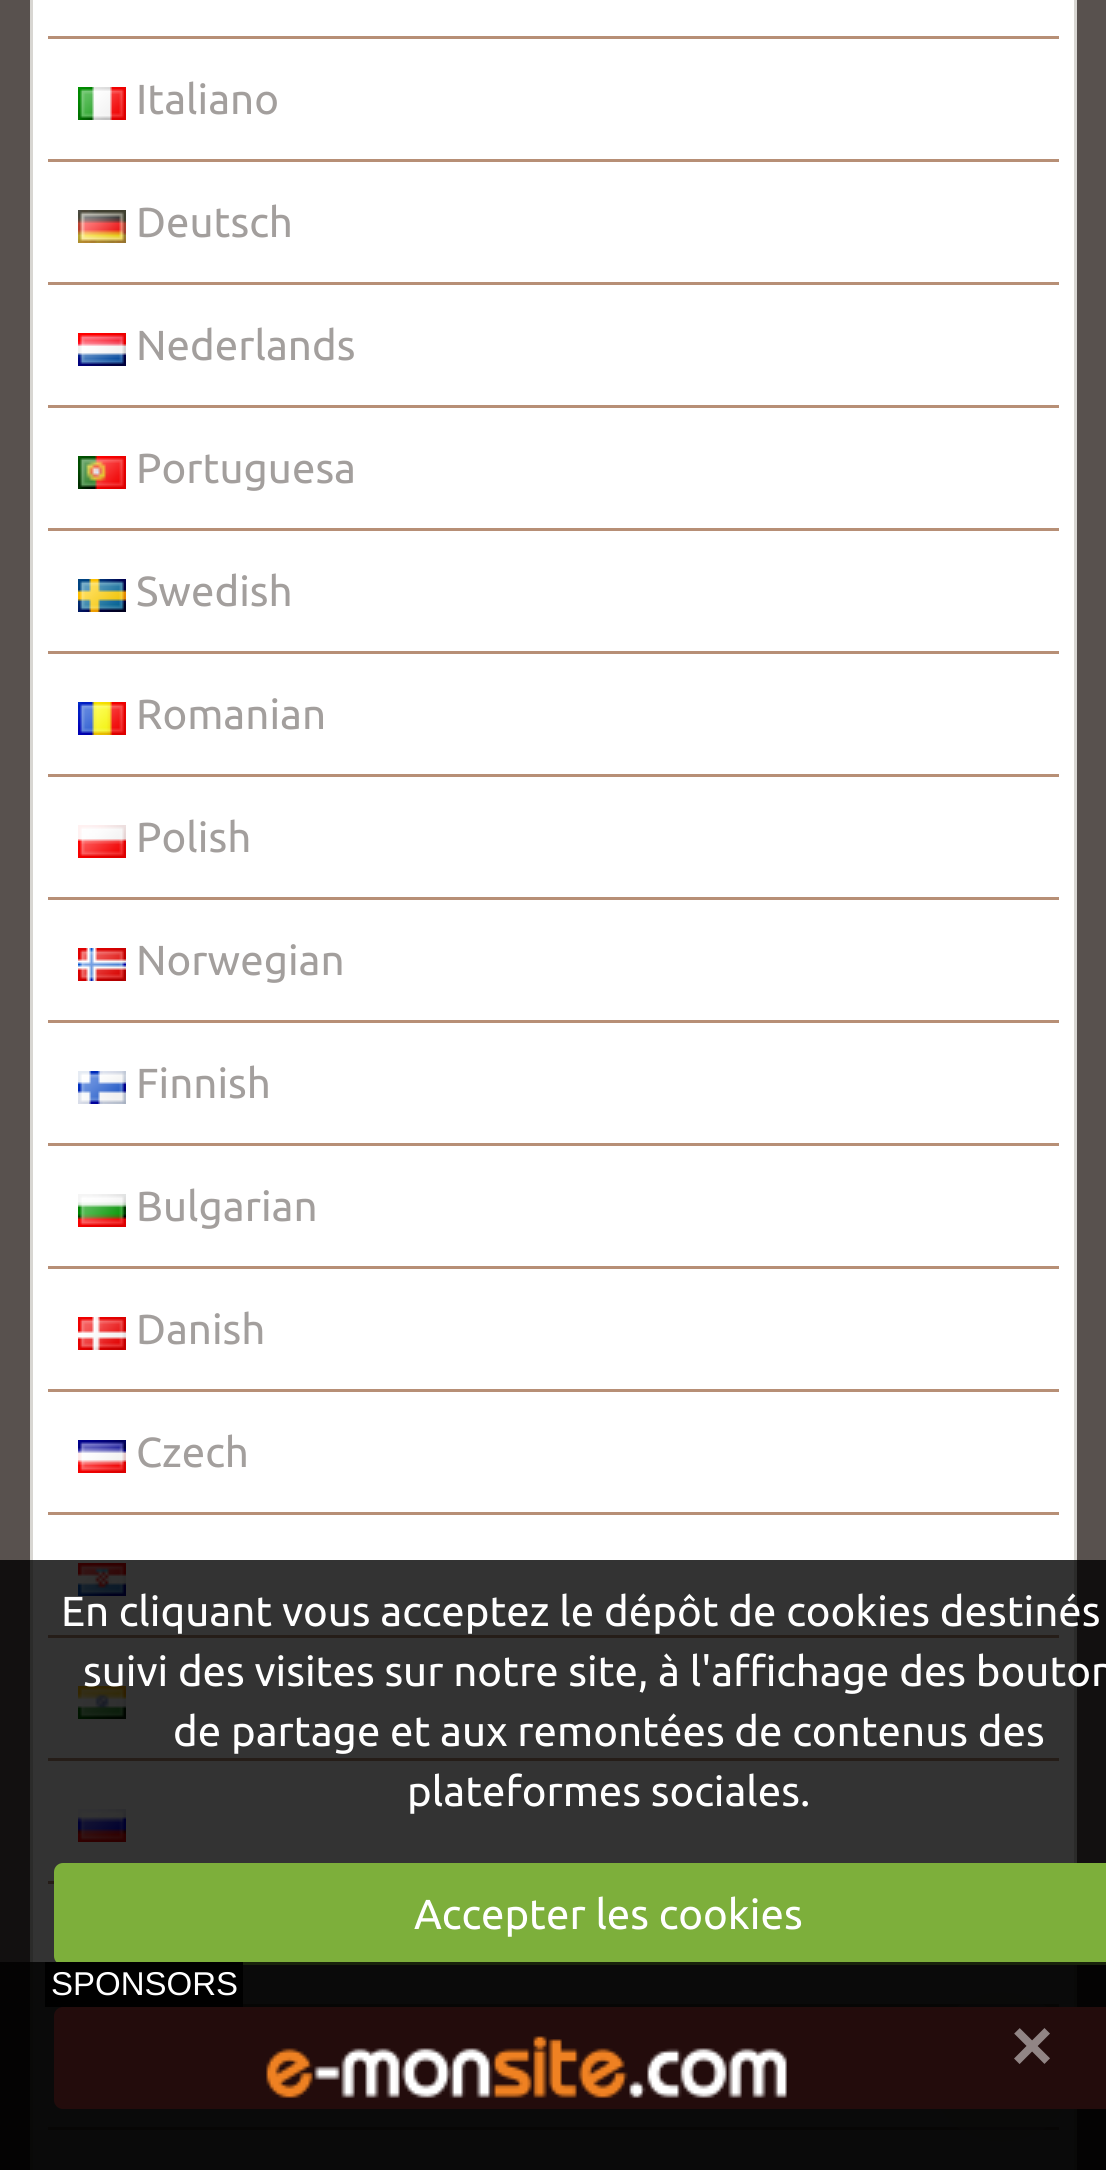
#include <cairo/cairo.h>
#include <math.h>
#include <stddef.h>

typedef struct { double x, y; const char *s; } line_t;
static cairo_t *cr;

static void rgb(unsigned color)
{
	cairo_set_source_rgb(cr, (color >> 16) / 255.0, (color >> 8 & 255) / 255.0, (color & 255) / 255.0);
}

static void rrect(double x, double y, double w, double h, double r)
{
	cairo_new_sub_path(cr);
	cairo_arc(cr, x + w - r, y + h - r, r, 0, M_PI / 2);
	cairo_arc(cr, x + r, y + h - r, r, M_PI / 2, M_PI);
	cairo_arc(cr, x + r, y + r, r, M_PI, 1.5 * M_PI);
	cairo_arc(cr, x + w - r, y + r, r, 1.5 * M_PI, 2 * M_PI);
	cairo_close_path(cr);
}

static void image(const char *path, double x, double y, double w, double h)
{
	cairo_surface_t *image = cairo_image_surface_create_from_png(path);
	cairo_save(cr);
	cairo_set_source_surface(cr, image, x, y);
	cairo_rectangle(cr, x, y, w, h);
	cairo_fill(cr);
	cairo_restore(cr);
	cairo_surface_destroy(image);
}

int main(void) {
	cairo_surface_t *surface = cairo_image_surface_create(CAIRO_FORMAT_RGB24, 1106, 2170);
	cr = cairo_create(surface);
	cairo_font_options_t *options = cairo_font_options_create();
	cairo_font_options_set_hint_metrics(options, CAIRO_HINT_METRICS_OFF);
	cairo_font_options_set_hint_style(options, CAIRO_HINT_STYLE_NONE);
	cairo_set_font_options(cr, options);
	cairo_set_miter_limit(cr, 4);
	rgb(0x58514e);
	cairo_paint(cr);
	rgb(0xffffff);
	cairo_rectangle(cr, 31.5, -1.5, 1044, 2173);
	cairo_fill_preserve(cr);
	rgb(0xd8d6d2);
	cairo_set_line_width(cr, 3);
	cairo_stroke(cr);
	rgb(0xb78f76);
	cairo_rectangle(cr, 48, 36, 1011, 3);
	cairo_fill(cr);
	cairo_rectangle(cr, 48, 159, 1011, 3);
	cairo_fill(cr);
	image("img/1.png", 78, 87, 48, 33);
	cairo_rectangle(cr, 48, 282, 1011, 3);
	cairo_fill(cr);
	image("img/2.png", 78, 210, 48, 33);
	cairo_rectangle(cr, 48, 405, 1011, 3);
	cairo_fill(cr);
	image("img/3.png", 78, 333, 48, 33);
	cairo_rectangle(cr, 48, 528, 1011, 3);
	cairo_fill(cr);
	image("img/4.png", 78, 456, 48, 33);
	cairo_rectangle(cr, 48, 651, 1011, 3);
	cairo_fill(cr);
	image("img/5.png", 78, 579, 48, 33);
	cairo_rectangle(cr, 48, 774, 1011, 3);
	cairo_fill(cr);
	image("img/6.png", 78, 702, 48, 33);
	cairo_rectangle(cr, 48, 897, 1011, 3);
	cairo_fill(cr);
	image("img/7.png", 78, 825, 48, 33);
	cairo_rectangle(cr, 48, 1020, 1011, 3);
	cairo_fill(cr);
	image("img/8.png", 78, 948, 48, 33);
	cairo_rectangle(cr, 48, 1143, 1011, 3);
	cairo_fill(cr);
	image("img/9.png", 78, 1071, 48, 33);
	cairo_rectangle(cr, 48, 1266, 1011, 3);
	cairo_fill(cr);
	image("img/10.png", 78, 1194, 48, 33);
	cairo_rectangle(cr, 48, 1389, 1011, 3);
	cairo_fill(cr);
	image("img/11.png", 78, 1317, 48, 33);
	cairo_rectangle(cr, 48, 1512, 1011, 3);
	cairo_fill(cr);
	image("img/12.png", 78, 1440, 48, 33);
	cairo_rectangle(cr, 48, 1635, 1011, 3);
	cairo_fill(cr);
	image("img/13.png", 78, 1563, 48, 33);
	cairo_rectangle(cr, 48, 1758, 1011, 3);
	cairo_fill(cr);
	image("img/14.png", 78, 1686, 48, 33);
	cairo_rectangle(cr, 48, 1881, 6, 3);
	cairo_fill(cr);
	image("img/15.png", 78, 1809, 48, 33);
	cairo_rectangle(cr, 243, 2004, 816, 3);
	cairo_fill(cr);
	cairo_rectangle(cr, 48, 2127, 1011, 3);
	cairo_fill(cr);
	cairo_set_source_rgba(cr, 0.902, 0.89, 0.859, 0.5);
	cairo_arc(cr, 1002, 2067, 75, 0, 2 * M_PI);
	cairo_fill(cr);
	cairo_set_source_rgba(cr, 0, 0, 0, 0.8);
	cairo_rectangle(cr, 0, 1560, 1106, 610);
	cairo_fill(cr);
	rgb(0x7daf3b);
	rrect(54, 1863, 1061, 102, 9);
	cairo_fill(cr);
	rgb(0xaf3b3b);
	rrect(54, 2007, 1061, 102, 9);
	cairo_fill(cr);
	cairo_set_source_rgba(cr, 0, 0, 0, 0.8);
	cairo_rectangle(cr, 0, 1962, 1106, 208);
	cairo_fill(cr);
	rgb(0x000000);
	cairo_rectangle(cr, 45, 1962, 198, 45);
	cairo_fill(cr);
	image("img/16.png", 266, 2036, 521, 62);
	cairo_select_font_face(cr, "Ubuntu", CAIRO_FONT_SLANT_NORMAL, CAIRO_FONT_WEIGHT_NORMAL);
	cairo_set_font_size(cr, 42);
	rgb(0xa39f9d);
	{
		static const line_t items[] = {
			{136, 114, "Italiano"},
			{136, 237, "Deutsch"},
			{136, 360, "Nederlands"},
			{136, 483, "Portuguesa"},
			{136, 606, "Swedish"},
			{136, 729, "Romanian"},
			{136, 852, "Polish"},
			{136, 975, "Norwegian"},
			{136, 1098, "Finnish"},
			{136, 1221, "Bulgarian"},
			{136, 1344, "Danish"},
			{136, 1467, "Czech"},
		};
		for (size_t i = 0; i < sizeof items / sizeof *items; i++) {
			cairo_move_to(cr, items[i].x, items[i].y);
			cairo_show_text(cr, items[i].s);
		}
	}
	rgb(0xffffff);
	{
		static const line_t items[] = {
			{61, 1626, "En cliquant vous acceptez le dépôt de cookies destinés"},
			{83, 1686, "suivi des visites sur notre site, à l'affichage des bouton"},
			{173, 1746, "de partage et aux remontées de contenus des"},
			{407, 1806, "plateformes sociales."},
			{414, 1929, "Accepter les cookies"},
		};
		for (size_t i = 0; i < sizeof items / sizeof *items; i++) {
			cairo_move_to(cr, items[i].x, items[i].y);
			cairo_show_text(cr, items[i].s);
		}
	}
	cairo_select_font_face(cr, "Liberation Sans", CAIRO_FONT_SLANT_NORMAL, CAIRO_FONT_WEIGHT_NORMAL);
	cairo_set_font_size(cr, 33);
	cairo_move_to(cr, 51, 1995);
	cairo_show_text(cr, "SPONSORS");
	cairo_select_font_face(cr, "Liberation Sans", CAIRO_FONT_SLANT_NORMAL, CAIRO_FONT_WEIGHT_BOLD);
	cairo_set_font_size(cr, 72);
	rgb(0x918585);
	cairo_move_to(cr, 1011, 2070);
	cairo_show_text(cr, "×");
	cairo_surface_write_to_png(surface, "page.png");
	cairo_font_options_destroy(options);
	cairo_destroy(cr);
	cairo_surface_destroy(surface);
	return 0;
}
